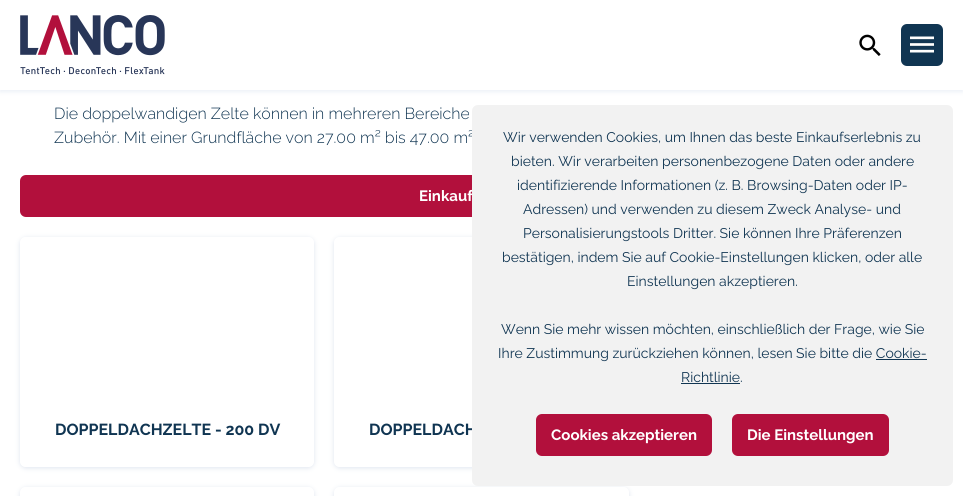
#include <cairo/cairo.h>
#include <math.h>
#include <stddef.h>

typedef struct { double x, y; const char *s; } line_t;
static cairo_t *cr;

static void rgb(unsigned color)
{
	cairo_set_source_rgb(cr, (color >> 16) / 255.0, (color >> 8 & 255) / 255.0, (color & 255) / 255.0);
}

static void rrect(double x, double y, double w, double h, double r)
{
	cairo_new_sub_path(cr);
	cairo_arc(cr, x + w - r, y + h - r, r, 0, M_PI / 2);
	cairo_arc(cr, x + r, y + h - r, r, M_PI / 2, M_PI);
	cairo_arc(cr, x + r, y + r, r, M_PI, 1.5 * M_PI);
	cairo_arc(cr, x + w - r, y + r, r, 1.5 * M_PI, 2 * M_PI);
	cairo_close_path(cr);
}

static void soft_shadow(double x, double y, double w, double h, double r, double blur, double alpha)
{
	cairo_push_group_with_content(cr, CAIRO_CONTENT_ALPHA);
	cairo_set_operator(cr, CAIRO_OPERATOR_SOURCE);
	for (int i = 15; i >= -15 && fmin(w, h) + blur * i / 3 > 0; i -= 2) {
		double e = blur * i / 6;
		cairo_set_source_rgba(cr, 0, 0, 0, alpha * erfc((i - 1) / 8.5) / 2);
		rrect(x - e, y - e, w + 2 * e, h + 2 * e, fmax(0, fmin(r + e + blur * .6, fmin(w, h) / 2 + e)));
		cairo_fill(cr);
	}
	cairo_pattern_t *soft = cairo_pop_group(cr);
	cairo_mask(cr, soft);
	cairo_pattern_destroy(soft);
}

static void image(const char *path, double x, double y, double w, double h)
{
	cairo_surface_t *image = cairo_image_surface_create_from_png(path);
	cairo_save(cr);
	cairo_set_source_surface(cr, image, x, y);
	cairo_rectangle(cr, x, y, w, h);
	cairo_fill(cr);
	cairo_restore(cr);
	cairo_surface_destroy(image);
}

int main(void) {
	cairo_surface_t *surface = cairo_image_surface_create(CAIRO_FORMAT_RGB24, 963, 496);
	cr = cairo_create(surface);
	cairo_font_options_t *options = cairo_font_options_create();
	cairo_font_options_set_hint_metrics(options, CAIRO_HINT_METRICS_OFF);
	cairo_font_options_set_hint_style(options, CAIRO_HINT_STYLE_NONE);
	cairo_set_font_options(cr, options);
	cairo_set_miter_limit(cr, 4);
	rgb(0xffffff);
	cairo_paint(cr);
	rgb(0xdae2ef);
	soft_shadow(0, 2, 963, 90, 0, 2, 0.5);
	rgb(0xffffff);
	cairo_rectangle(cr, 0, 0, 963, 90);
	cairo_fill(cr);
	image("img/1.png", 20, 15, 145, 60);
	image("img/2.png", 859, 34, 22, 22);
	rgb(0x103552);
	rrect(901, 24, 42, 42, 6);
	cairo_fill(cr);
	image("img/3.png", 910, 36, 24, 17);
	rgb(0xb2103c);
	rrect(20, 175, 923, 42, 6);
	cairo_fill(cr);
	cairo_save(cr);
	cairo_set_fill_rule(cr, CAIRO_FILL_RULE_EVEN_ODD);
	cairo_new_path(cr);
	cairo_move_to(cr, 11, 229);
	cairo_line_to(cr, 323, 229);
	cairo_line_to(cr, 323, 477);
	cairo_line_to(cr, 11, 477);
	cairo_close_path(cr);
	cairo_move_to(cr, 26, 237);
	cairo_line_to(cr, 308, 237);
	cairo_curve_to(cr, 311.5, 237, 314, 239.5, 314, 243);
	cairo_line_to(cr, 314, 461);
	cairo_curve_to(cr, 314, 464.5, 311.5, 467, 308, 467);
	cairo_line_to(cr, 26, 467);
	cairo_curve_to(cr, 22.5, 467, 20, 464.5, 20, 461);
	cairo_line_to(cr, 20, 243);
	cairo_curve_to(cr, 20, 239.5, 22.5, 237, 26, 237);
	cairo_close_path(cr);
	cairo_clip(cr);
	rgb(0xbfcbdf);
	soft_shadow(20, 238, 294, 230, 6, 2.5, 0.5);
	cairo_restore(cr);
	cairo_save(cr);
	cairo_set_fill_rule(cr, CAIRO_FILL_RULE_EVEN_ODD);
	cairo_new_path(cr);
	cairo_move_to(cr, 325, 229);
	cairo_line_to(cr, 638, 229);
	cairo_line_to(cr, 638, 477);
	cairo_line_to(cr, 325, 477);
	cairo_close_path(cr);
	cairo_move_to(cr, 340, 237);
	cairo_line_to(cr, 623, 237);
	cairo_curve_to(cr, 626.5, 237, 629, 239.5, 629, 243);
	cairo_line_to(cr, 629, 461);
	cairo_curve_to(cr, 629, 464.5, 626.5, 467, 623, 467);
	cairo_line_to(cr, 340, 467);
	cairo_curve_to(cr, 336.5, 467, 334, 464.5, 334, 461);
	cairo_line_to(cr, 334, 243);
	cairo_curve_to(cr, 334, 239.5, 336.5, 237, 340, 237);
	cairo_close_path(cr);
	cairo_clip(cr);
	rgb(0xbfcbdf);
	soft_shadow(334, 238, 295, 230, 6, 2.5, 0.5);
	cairo_restore(cr);
	cairo_save(cr);
	cairo_set_fill_rule(cr, CAIRO_FILL_RULE_EVEN_ODD);
	cairo_new_path(cr);
	cairo_move_to(cr, 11, 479);
	cairo_line_to(cr, 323, 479);
	cairo_line_to(cr, 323, 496);
	cairo_line_to(cr, 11, 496);
	cairo_close_path(cr);
	cairo_move_to(cr, 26, 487);
	cairo_line_to(cr, 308, 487);
	cairo_curve_to(cr, 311.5, 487, 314, 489.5, 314, 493);
	cairo_line_to(cr, 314, 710);
	cairo_curve_to(cr, 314, 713.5, 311.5, 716, 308, 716);
	cairo_line_to(cr, 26, 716);
	cairo_curve_to(cr, 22.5, 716, 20, 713.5, 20, 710);
	cairo_line_to(cr, 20, 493);
	cairo_curve_to(cr, 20, 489.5, 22.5, 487, 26, 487);
	cairo_close_path(cr);
	cairo_clip(cr);
	rgb(0xbfcbdf);
	soft_shadow(20, 488, 294, 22, 6, 2.5, 0.5);
	cairo_restore(cr);
	cairo_save(cr);
	cairo_set_fill_rule(cr, CAIRO_FILL_RULE_EVEN_ODD);
	cairo_new_path(cr);
	cairo_move_to(cr, 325, 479);
	cairo_line_to(cr, 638, 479);
	cairo_line_to(cr, 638, 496);
	cairo_line_to(cr, 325, 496);
	cairo_close_path(cr);
	cairo_move_to(cr, 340, 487);
	cairo_line_to(cr, 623, 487);
	cairo_curve_to(cr, 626.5, 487, 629, 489.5, 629, 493);
	cairo_line_to(cr, 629, 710);
	cairo_curve_to(cr, 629, 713.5, 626.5, 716, 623, 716);
	cairo_line_to(cr, 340, 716);
	cairo_curve_to(cr, 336.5, 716, 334, 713.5, 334, 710);
	cairo_line_to(cr, 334, 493);
	cairo_curve_to(cr, 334, 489.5, 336.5, 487, 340, 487);
	cairo_close_path(cr);
	cairo_clip(cr);
	rgb(0xbfcbdf);
	soft_shadow(334, 488, 295, 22, 6, 2.5, 0.5);
	cairo_restore(cr);
	cairo_select_font_face(cr, "Raleway Light", CAIRO_FONT_SLANT_NORMAL, CAIRO_FONT_WEIGHT_NORMAL);
	cairo_set_font_size(cr, 16);
	rgb(0x103552);
	cairo_move_to(cr, 54, 119);
	cairo_show_text(cr, "Die doppelwandigen Zelte können in mehreren Bereiche");
	cairo_move_to(cr, 54, 143);
	cairo_show_text(cr, "Zubehör. Mit einer Grundfläche von 27.00 m² bis 47.00 m²");
	cairo_select_font_face(cr, "Raleway", CAIRO_FONT_SLANT_NORMAL, CAIRO_FONT_WEIGHT_BOLD);
	cairo_set_font_size(cr, 15);
	rgb(0xffffff);
	cairo_move_to(cr, 419, 201);
	cairo_show_text(cr, "Einkauf");
	cairo_set_font_size(cr, 16);
	rgb(0x103552);
	cairo_move_to(cr, 55, 435);
	cairo_show_text(cr, "DOPPELDACHZELTE - 200 DV");
	cairo_move_to(cr, 369, 435);
	cairo_show_text(cr, "DOPPELDACH");
	rgb(0xf2f2f2);
	rrect(472, 105, 481, 381, 6);
	cairo_fill(cr);
	cairo_select_font_face(cr, "Raleway", CAIRO_FONT_SLANT_NORMAL, CAIRO_FONT_WEIGHT_NORMAL);
	cairo_set_font_size(cr, 14);
	rgb(0x103552);
	{
		static const line_t items[] = {
			{503, 142, "Wir verwenden Cookies, um Ihnen das beste Einkaufserlebnis zu"},
			{511, 166, "bieten. Wir verarbeiten personenbezogene Daten oder andere"},
			{517, 190, "identifizierende Informationen (z. B. Browsing-Daten oder IP-"},
			{523, 214, "Adressen) und verwenden zu diesem Zweck Analyse- und"},
			{523, 238, "Personalisierungstools Dritter. Sie können Ihre Präferenzen"},
			{502, 262, "bestätigen, indem Sie auf Cookie-Einstellungen klicken, oder alle"},
			{627, 286, "Einstellungen akzeptieren."},
			{501, 334, "Wenn Sie mehr wissen möchten, einschließlich der Frage, wie Sie"},
			{498, 358, "Ihre Zustimmung zurückziehen können, lesen Sie bitte die Cookie-"},
			{681, 382, "Richtlinie."},
		};
		for (size_t i = 0; i < sizeof items / sizeof *items; i++) {
			cairo_move_to(cr, items[i].x, items[i].y);
			cairo_show_text(cr, items[i].s);
		}
	}
	cairo_rectangle(cr, 876, 359, 51, 1);
	cairo_fill(cr);
	cairo_rectangle(cr, 681, 383, 59, 1);
	cairo_fill(cr);
	rgb(0xb2103c);
	rrect(536, 414, 176, 42, 6);
	cairo_fill(cr);
	cairo_select_font_face(cr, "Raleway", CAIRO_FONT_SLANT_NORMAL, CAIRO_FONT_WEIGHT_BOLD);
	cairo_set_font_size(cr, 15);
	rgb(0xffffff);
	cairo_move_to(cr, 551, 440);
	cairo_show_text(cr, "Cookies akzeptieren");
	rgb(0xb2103c);
	rrect(732, 414, 157, 42, 6);
	cairo_fill(cr);
	rgb(0xffffff);
	cairo_move_to(cr, 747, 440);
	cairo_show_text(cr, "Die Einstellungen");
	cairo_surface_write_to_png(surface, "page.png");
	cairo_font_options_destroy(options);
	cairo_destroy(cr);
	cairo_surface_destroy(surface);
	return 0;
}
